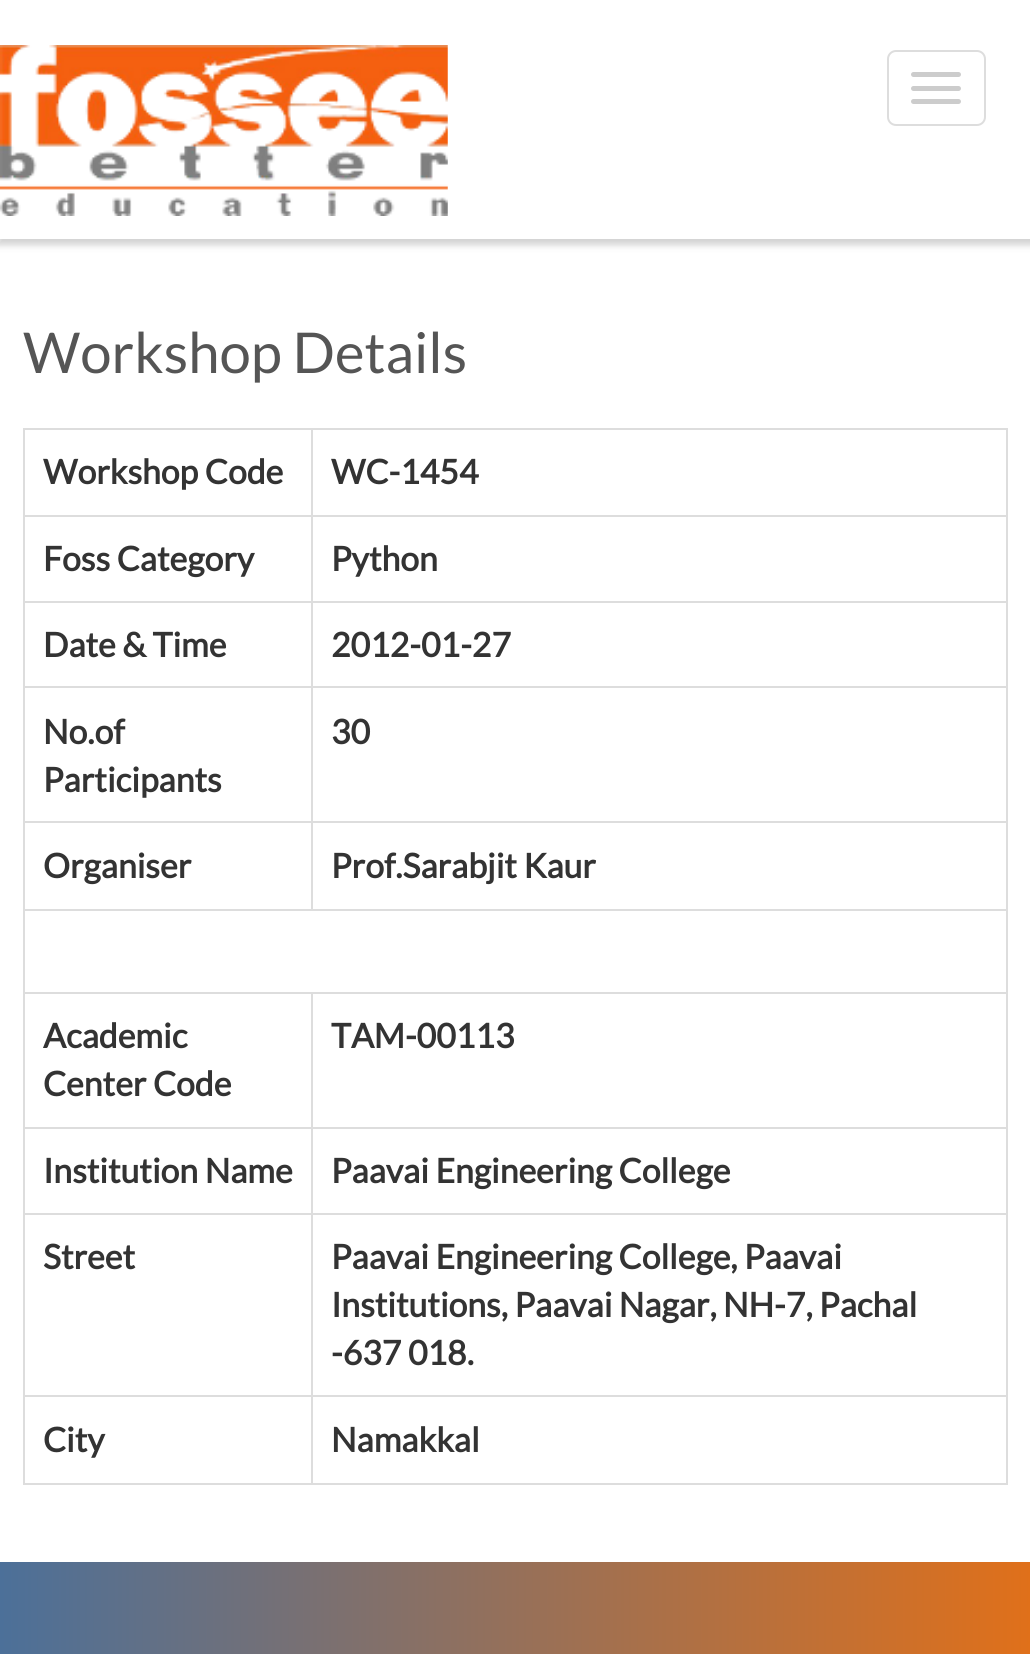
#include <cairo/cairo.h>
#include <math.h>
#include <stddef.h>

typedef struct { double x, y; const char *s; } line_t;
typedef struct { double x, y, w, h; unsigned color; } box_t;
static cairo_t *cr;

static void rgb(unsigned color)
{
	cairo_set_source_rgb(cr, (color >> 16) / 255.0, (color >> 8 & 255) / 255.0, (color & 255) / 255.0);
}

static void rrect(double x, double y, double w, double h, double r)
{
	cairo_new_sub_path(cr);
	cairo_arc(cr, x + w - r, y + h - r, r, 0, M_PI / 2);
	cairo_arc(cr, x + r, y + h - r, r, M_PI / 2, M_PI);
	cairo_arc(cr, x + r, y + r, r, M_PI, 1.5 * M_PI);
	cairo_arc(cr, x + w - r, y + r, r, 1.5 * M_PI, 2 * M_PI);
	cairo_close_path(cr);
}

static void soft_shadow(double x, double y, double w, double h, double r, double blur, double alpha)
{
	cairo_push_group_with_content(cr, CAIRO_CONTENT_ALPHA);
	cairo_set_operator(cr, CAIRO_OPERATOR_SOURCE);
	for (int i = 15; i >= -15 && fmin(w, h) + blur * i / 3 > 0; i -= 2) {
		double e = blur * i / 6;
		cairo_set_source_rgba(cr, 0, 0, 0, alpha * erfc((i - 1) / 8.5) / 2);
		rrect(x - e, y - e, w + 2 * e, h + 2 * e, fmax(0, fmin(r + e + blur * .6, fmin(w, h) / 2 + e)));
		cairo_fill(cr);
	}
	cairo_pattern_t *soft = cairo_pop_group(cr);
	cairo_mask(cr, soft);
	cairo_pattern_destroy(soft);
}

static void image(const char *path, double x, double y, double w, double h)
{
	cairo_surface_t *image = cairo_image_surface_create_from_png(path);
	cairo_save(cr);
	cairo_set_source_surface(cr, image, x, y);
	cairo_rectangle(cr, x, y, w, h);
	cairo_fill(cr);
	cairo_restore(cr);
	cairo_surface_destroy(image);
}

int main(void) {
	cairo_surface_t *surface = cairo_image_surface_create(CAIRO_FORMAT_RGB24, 1030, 1654);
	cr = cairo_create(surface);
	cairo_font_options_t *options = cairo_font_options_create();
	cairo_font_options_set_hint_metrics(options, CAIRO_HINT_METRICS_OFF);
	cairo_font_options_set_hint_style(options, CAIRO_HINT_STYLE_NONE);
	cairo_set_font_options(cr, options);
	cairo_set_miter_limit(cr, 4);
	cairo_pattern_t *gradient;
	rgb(0xffffff);
	cairo_paint(cr);
	rgb(0x000000);
	soft_shadow(-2, -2, 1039, 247, 0, 3.5, 0.18);
	rgb(0xffffff);
	cairo_rectangle(cr, 0, 0, 1030, 239);
	cairo_fill(cr);
	image("img/1.png", 0, 45, 448, 171);
	rrect(888, 51, 97, 74, 8);
	rgb(0xdddddd);
	cairo_stroke(cr);
	rgb(0xcccccc);
	rrect(911, 72, 50, 5, 2.5);
	cairo_fill(cr);
	rrect(911, 86, 50, 5, 2.5);
	cairo_fill(cr);
	rrect(911, 99, 50, 5, 2.5);
	cairo_fill(cr);
	{
		static const box_t items[] = {
			{311, 428, 697, 2, 0xdddddd},
			{311, 515, 697, 2, 0xdddddd},
			{311, 601, 697, 2, 0xdddddd},
			{311, 686, 697, 2, 0xdddddd},
			{311, 821, 697, 2, 0xdddddd},
			{23, 909, 985, 2, 0xdddddd},
			{311, 821, 2, 90, 0xdddddd},
			{23, 821, 290, 2, 0xdddddd},
			{311, 686, 2, 138, 0xdddddd},
			{23, 686, 290, 2, 0xdddddd},
			{311, 601, 2, 88, 0xdddddd},
			{23, 601, 290, 2, 0xdddddd},
			{311, 515, 2, 88, 0xdddddd},
			{23, 515, 290, 2, 0xdddddd},
			{311, 428, 2, 90, 0xdddddd},
			{23, 428, 290, 2, 0xdddddd},
			{311, 992, 697, 2, 0xdddddd},
			{311, 1127, 697, 2, 0xdddddd},
			{311, 1213, 697, 2, 0xdddddd},
			{311, 1395, 697, 2, 0xdddddd},
			{1006, 1395, 2, 90, 0xdddddd},
			{311, 1483, 697, 2, 0xdddddd},
			{311, 1395, 2, 90, 0xdddddd},
			{23, 1395, 290, 2, 0xdddddd},
			{311, 1213, 2, 184, 0xdddddd},
			{23, 1213, 290, 2, 0xdddddd},
			{311, 1127, 2, 88, 0xdddddd},
			{23, 1127, 290, 2, 0xdddddd},
			{311, 992, 2, 138, 0xdddddd},
			{23, 992, 290, 2, 0xdddddd},
			{23, 1483, 290, 2, 0xdddddd},
			{23, 1395, 2, 90, 0xdddddd},
			{23, 1213, 2, 184, 0xdddddd},
			{23, 1127, 2, 88, 0xdddddd},
			{23, 992, 2, 138, 0xdddddd},
			{23, 909, 2, 86, 0xdddddd},
			{23, 821, 2, 90, 0xdddddd},
			{23, 686, 2, 138, 0xdddddd},
			{23, 601, 2, 88, 0xdddddd},
			{23, 515, 2, 88, 0xdddddd},
			{23, 428, 2, 90, 0xdddddd},
			{1006, 1213, 2, 184, 0xdddddd},
			{1006, 1127, 2, 88, 0xdddddd},
			{1006, 992, 2, 138, 0xdddddd},
			{1006, 909, 2, 86, 0xdddddd},
			{1006, 821, 2, 90, 0xdddddd},
			{1006, 686, 2, 138, 0xdddddd},
			{1006, 601, 2, 88, 0xdddddd},
			{1006, 515, 2, 88, 0xdddddd},
			{1006, 428, 2, 90, 0xdddddd},
		};
		for (size_t i = 0; i < sizeof items / sizeof *items; i++) {
			rgb(items[i].color);
			cairo_rectangle(cr, items[i].x, items[i].y, items[i].w, items[i].h);
			cairo_fill(cr);
		}
	}
	gradient = cairo_pattern_create_linear(0, 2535, 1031, 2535);
	cairo_pattern_add_color_stop_rgba(gradient, 0, 0.298, 0.439, 0.6, 1);
	cairo_pattern_add_color_stop_rgba(gradient, 1, 0.878, 0.439, 0.102, 1);
	cairo_set_source(cr, gradient);
	cairo_pattern_destroy(gradient);
	cairo_rectangle(cr, 0, 1562, 1030, 92);
	cairo_fill(cr);
	cairo_select_font_face(cr, "Lato", CAIRO_FONT_SLANT_NORMAL, CAIRO_FONT_WEIGHT_NORMAL);
	cairo_set_font_size(cr, 56.25);
	rgb(0x555555);
	cairo_move_to(cr, 23, 373);
	cairo_show_text(cr, "Workshop Details");
	cairo_select_font_face(cr, "Lato", CAIRO_FONT_SLANT_NORMAL, CAIRO_FONT_WEIGHT_BOLD);
	cairo_set_font_size(cr, 33.75);
	rgb(0x333333);
	{
		static const line_t items[] = {
			{43, 484, "Workshop Code"},
			{331, 484, "WC-1454"},
			{43, 571, "Foss Category"},
			{331, 571, "Python"},
			{43, 657, "Date & Time"},
			{331, 657, "2012-01-27"},
			{43, 744, "No.of"},
			{43, 792, "Participants"},
			{331, 744, "30"},
			{43, 878, "Organiser"},
			{331, 878, "Prof.Sarabjit Kaur"},
			{43, 1048, "Academic"},
			{43, 1096, "Center Code"},
			{331, 1048, "TAM-00113"},
			{43, 1183, "Institution Name"},
			{331, 1183, "Paavai Engineering College"},
			{43, 1269, "Street"},
			{331, 1269, "Paavai Engineering College, Paavai"},
			{331, 1317, "Institutions, Paavai Nagar, NH-7, Pachal"},
			{331, 1365, "-637 018."},
			{43, 1452, "City"},
			{331, 1452, "Namakkal"},
		};
		for (size_t i = 0; i < sizeof items / sizeof *items; i++) {
			cairo_move_to(cr, items[i].x, items[i].y);
			cairo_show_text(cr, items[i].s);
		}
	}
	cairo_surface_write_to_png(surface, "page.png");
	cairo_font_options_destroy(options);
	cairo_destroy(cr);
	cairo_surface_destroy(surface);
	return 0;
}
